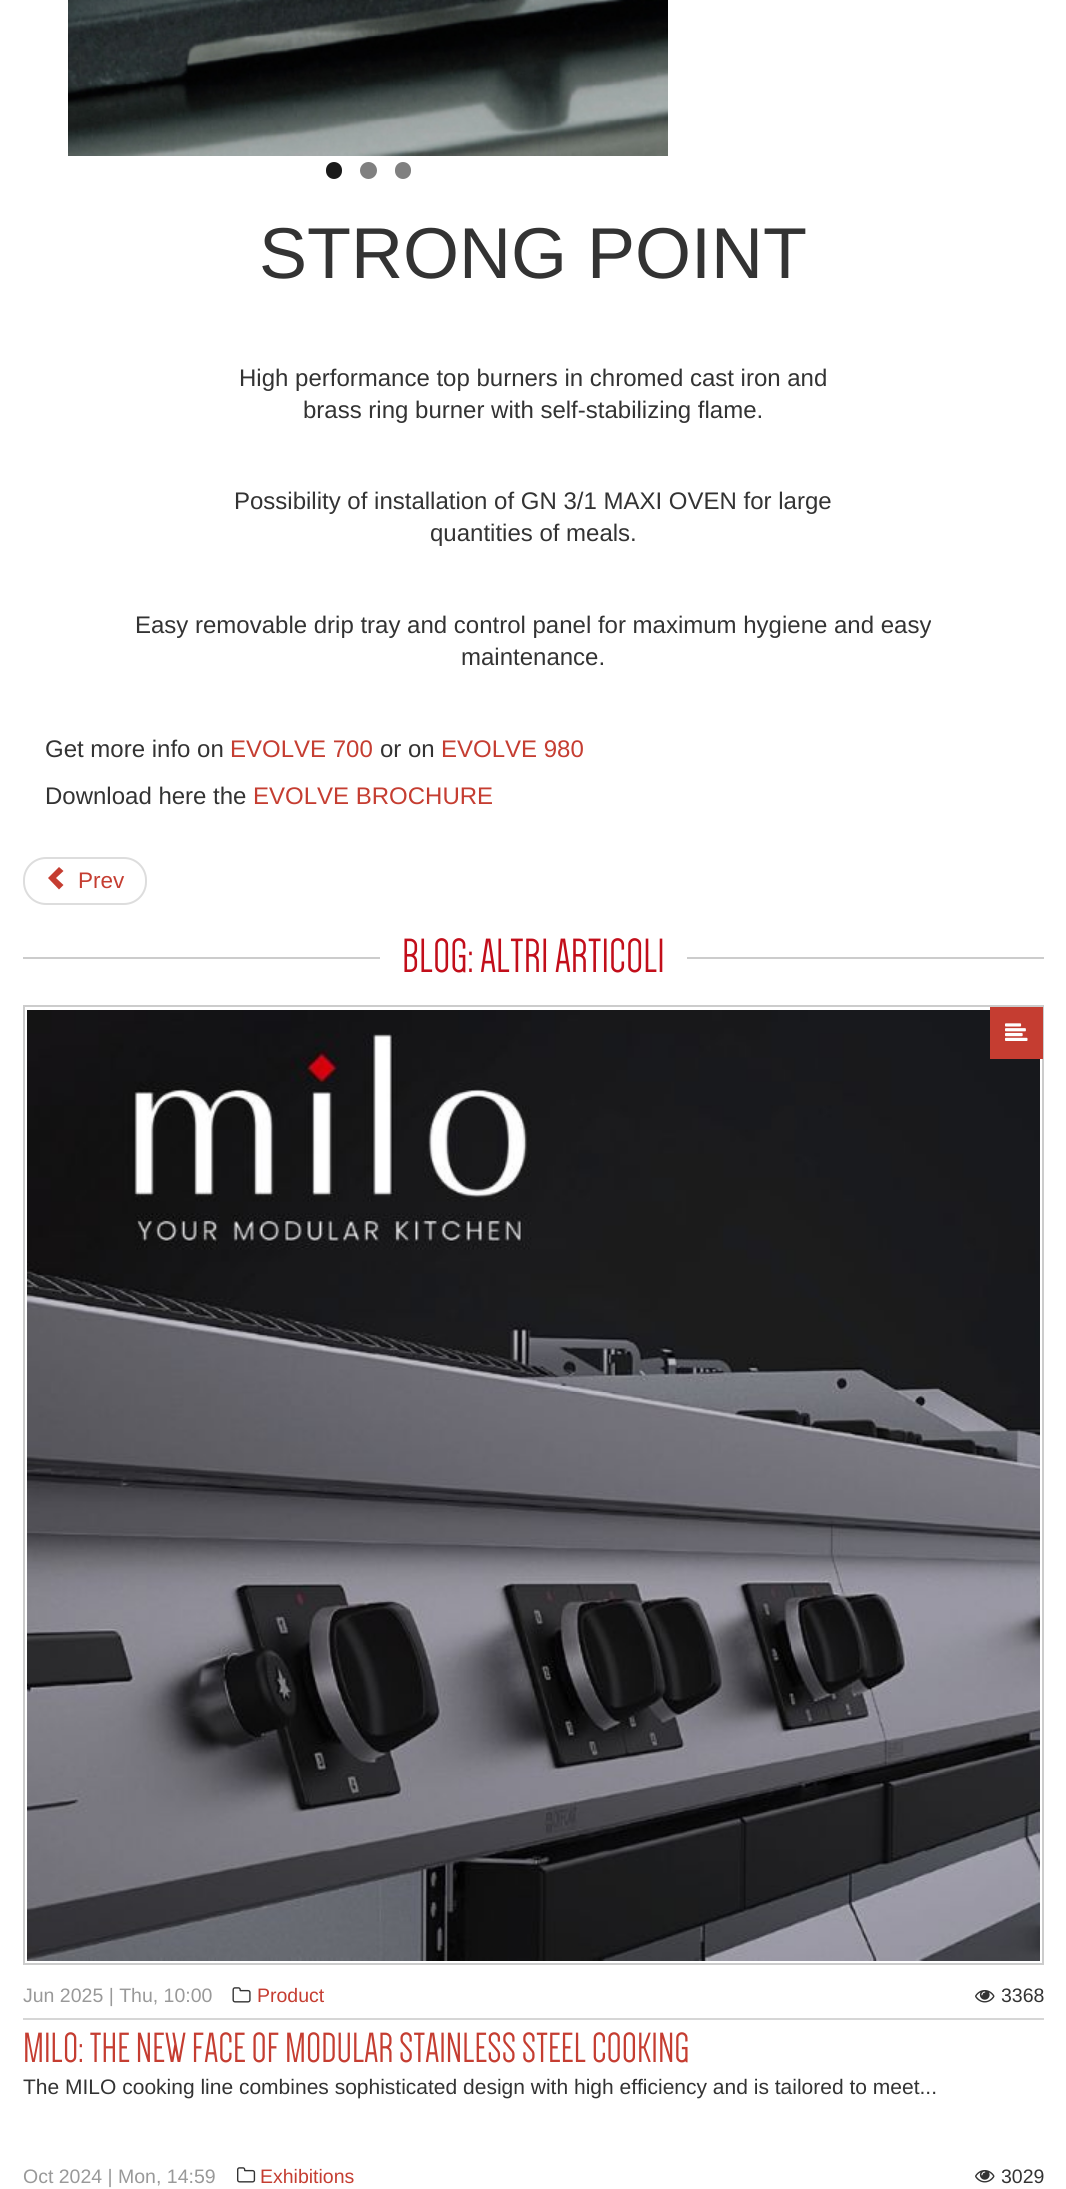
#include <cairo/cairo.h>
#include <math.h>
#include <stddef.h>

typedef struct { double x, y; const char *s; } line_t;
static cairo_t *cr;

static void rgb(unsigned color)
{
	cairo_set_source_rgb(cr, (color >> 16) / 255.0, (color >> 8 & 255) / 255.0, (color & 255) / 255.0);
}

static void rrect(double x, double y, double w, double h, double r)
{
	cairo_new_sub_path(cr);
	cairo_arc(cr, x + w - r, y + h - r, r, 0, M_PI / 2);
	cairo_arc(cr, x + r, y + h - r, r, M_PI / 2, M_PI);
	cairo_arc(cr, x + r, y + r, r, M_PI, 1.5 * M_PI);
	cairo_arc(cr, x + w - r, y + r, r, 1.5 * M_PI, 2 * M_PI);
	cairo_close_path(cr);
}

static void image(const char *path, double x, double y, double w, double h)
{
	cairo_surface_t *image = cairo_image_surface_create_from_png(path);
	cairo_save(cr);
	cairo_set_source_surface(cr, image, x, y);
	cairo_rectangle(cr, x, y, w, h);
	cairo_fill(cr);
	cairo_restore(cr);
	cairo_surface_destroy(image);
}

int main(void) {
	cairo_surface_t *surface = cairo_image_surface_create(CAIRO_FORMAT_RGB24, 1066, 2189);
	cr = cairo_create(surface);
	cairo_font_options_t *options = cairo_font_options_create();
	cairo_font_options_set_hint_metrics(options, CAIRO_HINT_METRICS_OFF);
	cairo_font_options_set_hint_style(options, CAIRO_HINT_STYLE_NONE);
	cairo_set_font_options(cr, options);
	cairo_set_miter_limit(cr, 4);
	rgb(0xffffff);
	cairo_paint(cr);
	image("img/1.png", 68, 0, 600, 156);
	rgb(0x1a1a1a);
	rrect(326, 162, 16, 17, 8);
	cairo_fill(cr);
	rgb(0x808080);
	cairo_arc(cr, 368.5, 170.5, 8.5, 0, 2 * M_PI);
	cairo_fill(cr);
	rrect(395, 162, 16, 17, 8);
	cairo_fill(cr);
	rrect(24, 858, 122, 46, 22);
	rgb(0xdddddd);
	cairo_stroke(cr);
	rgb(0xc53d31);
	cairo_new_path(cr);
	cairo_move_to(cr, 59, 889.5);
	cairo_line_to(cr, 48, 878);
	cairo_line_to(cr, 59, 867);
	cairo_line_to(cr, 63.5, 871);
	cairo_line_to(cr, 56, 878);
	cairo_line_to(cr, 63.5, 885);
	cairo_close_path(cr);
	cairo_fill(cr);
	rgb(0xcccccc);
	cairo_rectangle(cr, 23, 957, 1021, 2);
	cairo_fill(cr);
	rgb(0xffffff);
	cairo_rectangle(cr, 380, 957, 307, 2);
	cairo_fill(cr);
	cairo_rectangle(cr, 24, 1006, 1019, 958);
	rgb(0xcccccc);
	cairo_stroke(cr);
	image("img/3.png", 27, 1010, 1013, 951);
	rgb(0xc53d31);
	cairo_rectangle(cr, 990, 1007, 53, 52);
	cairo_fill(cr);
	image("img/2.png", 1005, 1023, 23, 18);
	image("img/4.png", 232, 1987, 19, 16);
	image("img/5.png", 975, 1990, 20, 13);
	rgb(0xd6d6d6);
	cairo_rectangle(cr, 23, 2018, 1021, 2);
	cairo_fill(cr);
	image("img/6.png", 237, 2167, 19, 16);
	image("img/5.png", 975, 2170, 20, 13);
	cairo_select_font_face(cr, "Liberation Sans", CAIRO_FONT_SLANT_NORMAL, CAIRO_FONT_WEIGHT_NORMAL);
	cairo_set_font_size(cr, 72);
	rgb(0x333333);
	cairo_move_to(cr, 259, 278);
	cairo_show_text(cr, "STRONG POINT");
	cairo_set_font_size(cr, 24);
	{
		static const line_t items[] = {
			{239, 386, "High performance top burners in chromed cast iron and"},
			{303, 418, "brass ring burner with self-stabilizing flame."},
			{234, 509, "Possibility of installation of GN 3/1 MAXI OVEN for large"},
			{430, 541, "quantities of meals."},
			{135, 633, "Easy removable drip tray and control panel for maximum hygiene and easy"},
			{461, 665, "maintenance."},
			{45, 757, "Get more info on"},
		};
		for (size_t i = 0; i < sizeof items / sizeof *items; i++) {
			cairo_move_to(cr, items[i].x, items[i].y);
			cairo_show_text(cr, items[i].s);
		}
	}
	rgb(0xc53d31);
	cairo_move_to(cr, 230, 757);
	cairo_show_text(cr, "EVOLVE 700");
	rgb(0x333333);
	cairo_move_to(cr, 380, 757);
	cairo_show_text(cr, "or on");
	rgb(0xc53d31);
	cairo_move_to(cr, 441, 757);
	cairo_show_text(cr, "EVOLVE 980");
	rgb(0x333333);
	cairo_move_to(cr, 45, 804);
	cairo_show_text(cr, "Download here the");
	rgb(0xc53d31);
	cairo_move_to(cr, 253, 804);
	cairo_show_text(cr, "EVOLVE BROCHURE");
	cairo_set_font_size(cr, 22.5);
	cairo_move_to(cr, 78, 888);
	cairo_show_text(cr, "Prev");
	cairo_select_font_face(cr, "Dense", CAIRO_FONT_SLANT_NORMAL, CAIRO_FONT_WEIGHT_NORMAL);
	cairo_set_font_size(cr, 49.5);
	rgb(0xc20e1a);
	cairo_move_to(cr, 402, 972);
	cairo_show_text(cr, "BLOG: ALTRI ARTICOLI");
	cairo_select_font_face(cr, "Liberation Sans", CAIRO_FONT_SLANT_NORMAL, CAIRO_FONT_WEIGHT_NORMAL);
	cairo_set_font_size(cr, 19.5);
	rgb(0x999999);
	cairo_move_to(cr, 23, 2002);
	cairo_show_text(cr, "Jun 2025 | Thu, 10:00");
	rgb(0xc53d31);
	cairo_move_to(cr, 257, 2002);
	cairo_show_text(cr, "Product");
	rgb(0x333333);
	cairo_move_to(cr, 1001, 2002);
	cairo_show_text(cr, "3368");
	cairo_select_font_face(cr, "Dense", CAIRO_FONT_SLANT_NORMAL, CAIRO_FONT_WEIGHT_NORMAL);
	cairo_set_font_size(cr, 43.5);
	rgb(0xc53d31);
	cairo_move_to(cr, 23, 2062);
	cairo_show_text(cr, "MILO: THE NEW FACE OF MODULAR STAINLESS STEEL COOKING");
	cairo_select_font_face(cr, "Liberation Sans", CAIRO_FONT_SLANT_NORMAL, CAIRO_FONT_WEIGHT_NORMAL);
	cairo_set_font_size(cr, 21);
	rgb(0x333333);
	cairo_move_to(cr, 23, 2094);
	cairo_show_text(cr, "The MILO cooking line combines sophisticated design with high efficiency and is tailored to meet...");
	cairo_set_font_size(cr, 19.5);
	rgb(0x999999);
	cairo_move_to(cr, 23, 2183);
	cairo_show_text(cr, "Oct 2024 | Mon, 14:59");
	rgb(0xc53d31);
	cairo_move_to(cr, 260, 2183);
	cairo_show_text(cr, "Exhibitions");
	rgb(0x333333);
	cairo_move_to(cr, 1001, 2183);
	cairo_show_text(cr, "3029");
	cairo_surface_write_to_png(surface, "page.png");
	cairo_font_options_destroy(options);
	cairo_destroy(cr);
	cairo_surface_destroy(surface);
	return 0;
}
